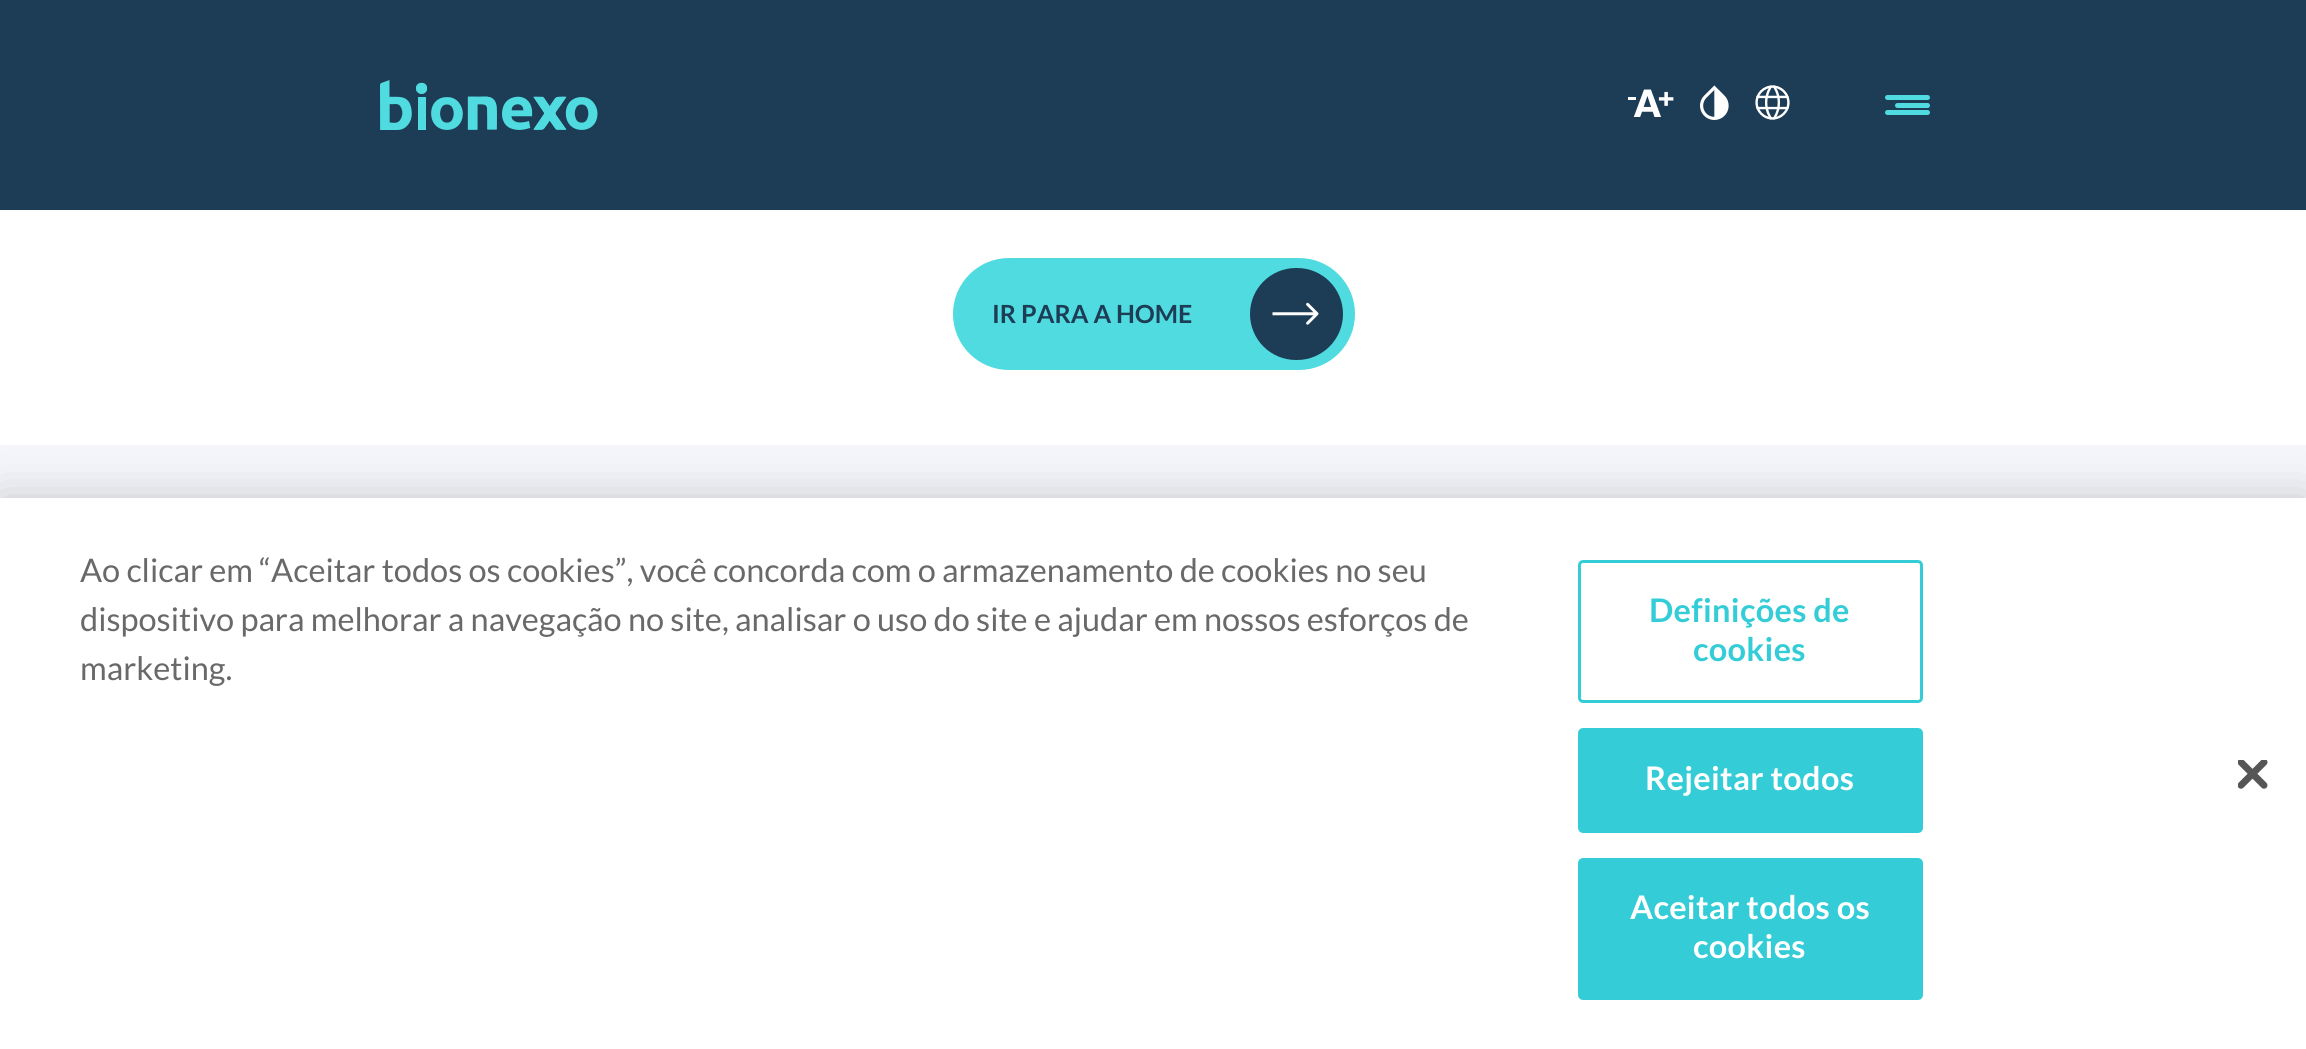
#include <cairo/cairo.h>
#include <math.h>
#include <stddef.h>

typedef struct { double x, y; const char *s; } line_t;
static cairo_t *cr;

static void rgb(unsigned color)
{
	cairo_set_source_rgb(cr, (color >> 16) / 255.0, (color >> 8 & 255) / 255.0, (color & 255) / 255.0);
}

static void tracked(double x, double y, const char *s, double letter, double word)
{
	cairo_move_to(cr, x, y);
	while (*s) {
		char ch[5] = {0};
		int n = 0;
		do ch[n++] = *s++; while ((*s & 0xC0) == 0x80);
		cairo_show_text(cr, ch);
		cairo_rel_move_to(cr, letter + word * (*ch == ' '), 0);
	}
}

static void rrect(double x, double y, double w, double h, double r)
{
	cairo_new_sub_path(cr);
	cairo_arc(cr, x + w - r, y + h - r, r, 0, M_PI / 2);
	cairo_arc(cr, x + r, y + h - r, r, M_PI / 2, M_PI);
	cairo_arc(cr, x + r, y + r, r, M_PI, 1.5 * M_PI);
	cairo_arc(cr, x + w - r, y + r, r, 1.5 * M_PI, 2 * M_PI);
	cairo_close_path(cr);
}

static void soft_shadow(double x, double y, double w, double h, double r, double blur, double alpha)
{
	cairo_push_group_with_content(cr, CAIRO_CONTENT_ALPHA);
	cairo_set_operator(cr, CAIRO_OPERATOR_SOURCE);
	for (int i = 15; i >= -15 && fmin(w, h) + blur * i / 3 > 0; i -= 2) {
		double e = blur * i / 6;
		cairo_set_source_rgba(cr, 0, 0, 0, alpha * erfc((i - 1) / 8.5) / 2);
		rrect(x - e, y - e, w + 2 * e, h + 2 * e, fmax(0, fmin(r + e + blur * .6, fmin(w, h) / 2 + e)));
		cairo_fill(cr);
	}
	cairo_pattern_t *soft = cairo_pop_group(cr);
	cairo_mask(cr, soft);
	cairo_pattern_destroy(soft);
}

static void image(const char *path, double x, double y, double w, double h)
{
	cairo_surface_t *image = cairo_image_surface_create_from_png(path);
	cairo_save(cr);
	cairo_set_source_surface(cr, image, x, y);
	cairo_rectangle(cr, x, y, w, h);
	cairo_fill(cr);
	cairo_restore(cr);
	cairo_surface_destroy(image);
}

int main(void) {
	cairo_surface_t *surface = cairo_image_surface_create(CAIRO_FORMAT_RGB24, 2306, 1049);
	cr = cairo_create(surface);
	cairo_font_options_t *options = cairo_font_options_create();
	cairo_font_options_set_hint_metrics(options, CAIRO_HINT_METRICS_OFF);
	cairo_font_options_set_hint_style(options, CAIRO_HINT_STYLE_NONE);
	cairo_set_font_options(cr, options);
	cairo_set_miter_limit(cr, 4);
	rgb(0xffffff);
	cairo_paint(cr);
	rgb(0x1d3c55);
	cairo_rectangle(cr, 0, 0, 2306, 210);
	cairo_fill(cr);
	image("img/1.png", 380, 80, 218, 50);
	image("img/2.png", 1628, 89, 46, 28);
	image("img/3.png", 1700, 85, 29, 35);
	image("img/4.png", 1755, 85, 35, 35);
	rgb(0x4fdbdf);
	rrect(1885, 95, 45, 5, 2.5);
	cairo_fill(cr);
	rrect(1895, 103, 35, 5, 2.5);
	cairo_fill(cr);
	rrect(1885, 110, 45, 5, 2.5);
	cairo_fill(cr);
	rrect(955.5, 260.5, 397, 107, 53.5);
	cairo_fill_preserve(cr);
	cairo_set_line_width(cr, 5);
	cairo_stroke(cr);
	rgb(0x1d3c55);
	rrect(1250, 268, 93, 92, 46);
	cairo_fill(cr);
	image("img/5.png", 1272, 302, 47, 23);
	rgb(0xf5f6fb);
	cairo_rectangle(cr, 0, 445, 2306, 53);
	cairo_fill(cr);
	rgb(0x000000);
	soft_shadow(0, 498, 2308, 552, 0, 22.5, 0.2);
	rgb(0xffffff);
	cairo_rectangle(cr, 0, 498, 2306, 551);
	cairo_fill(cr);
	rrect(1579.5, 561.5, 342, 140, 3.5);
	rgb(0x34cdd7);
	cairo_set_line_width(cr, 3);
	cairo_stroke(cr);
	rrect(1579.5, 729.5, 342, 102, 3.5);
	cairo_fill_preserve(cr);
	cairo_stroke(cr);
	rrect(1579.5, 859.5, 342, 139, 3.5);
	cairo_fill_preserve(cr);
	cairo_stroke(cr);
	image("img/6.png", 2238, 760, 30, 29);
	cairo_select_font_face(cr, "Lato", CAIRO_FONT_SLANT_NORMAL, CAIRO_FONT_WEIGHT_BOLD);
	cairo_set_font_size(cr, 25);
	rgb(0x1d3c55);
	cairo_move_to(cr, 992, 323);
	cairo_show_text(cr, "IR PARA A HOME");
	cairo_select_font_face(cr, "Lato", CAIRO_FONT_SLANT_NORMAL, CAIRO_FONT_WEIGHT_NORMAL);
	cairo_set_font_size(cr, 32.5);
	rgb(0x696969);
	{
		static const line_t items[] = {
			{80, 582, "Ao clicar em “Aceitar todos os cookies”, você concorda com o armazenamento de cookies no seu"},
			{80, 631, "dispositivo para melhorar a navegação no site, analisar o uso do site e ajudar em nossos esforços de"},
			{80, 680, "marketing."},
		};
		for (size_t i = 0; i < sizeof items / sizeof *items; i++) {
			cairo_move_to(cr, items[i].x, items[i].y);
			cairo_show_text(cr, items[i].s);
		}
	}
	cairo_select_font_face(cr, "Lato", CAIRO_FONT_SLANT_NORMAL, CAIRO_FONT_WEIGHT_BOLD);
	rgb(0x34cdd7);
	tracked(1649, 622, "Definições de", 0.3, 0);
	tracked(1693, 661, "cookies", 0.3, 0);
	rgb(0xffffff);
	{
		static const line_t items[] = {
			{1645, 790, "Rejeitar todos"},
			{1630, 919, "Aceitar todos os"},
			{1693, 958, "cookies"},
		};
		for (size_t i = 0; i < sizeof items / sizeof *items; i++) {
			tracked(items[i].x, items[i].y, items[i].s, 0.3, 0);
		}
	}
	cairo_surface_write_to_png(surface, "page.png");
	cairo_font_options_destroy(options);
	cairo_destroy(cr);
	cairo_surface_destroy(surface);
	return 0;
}
